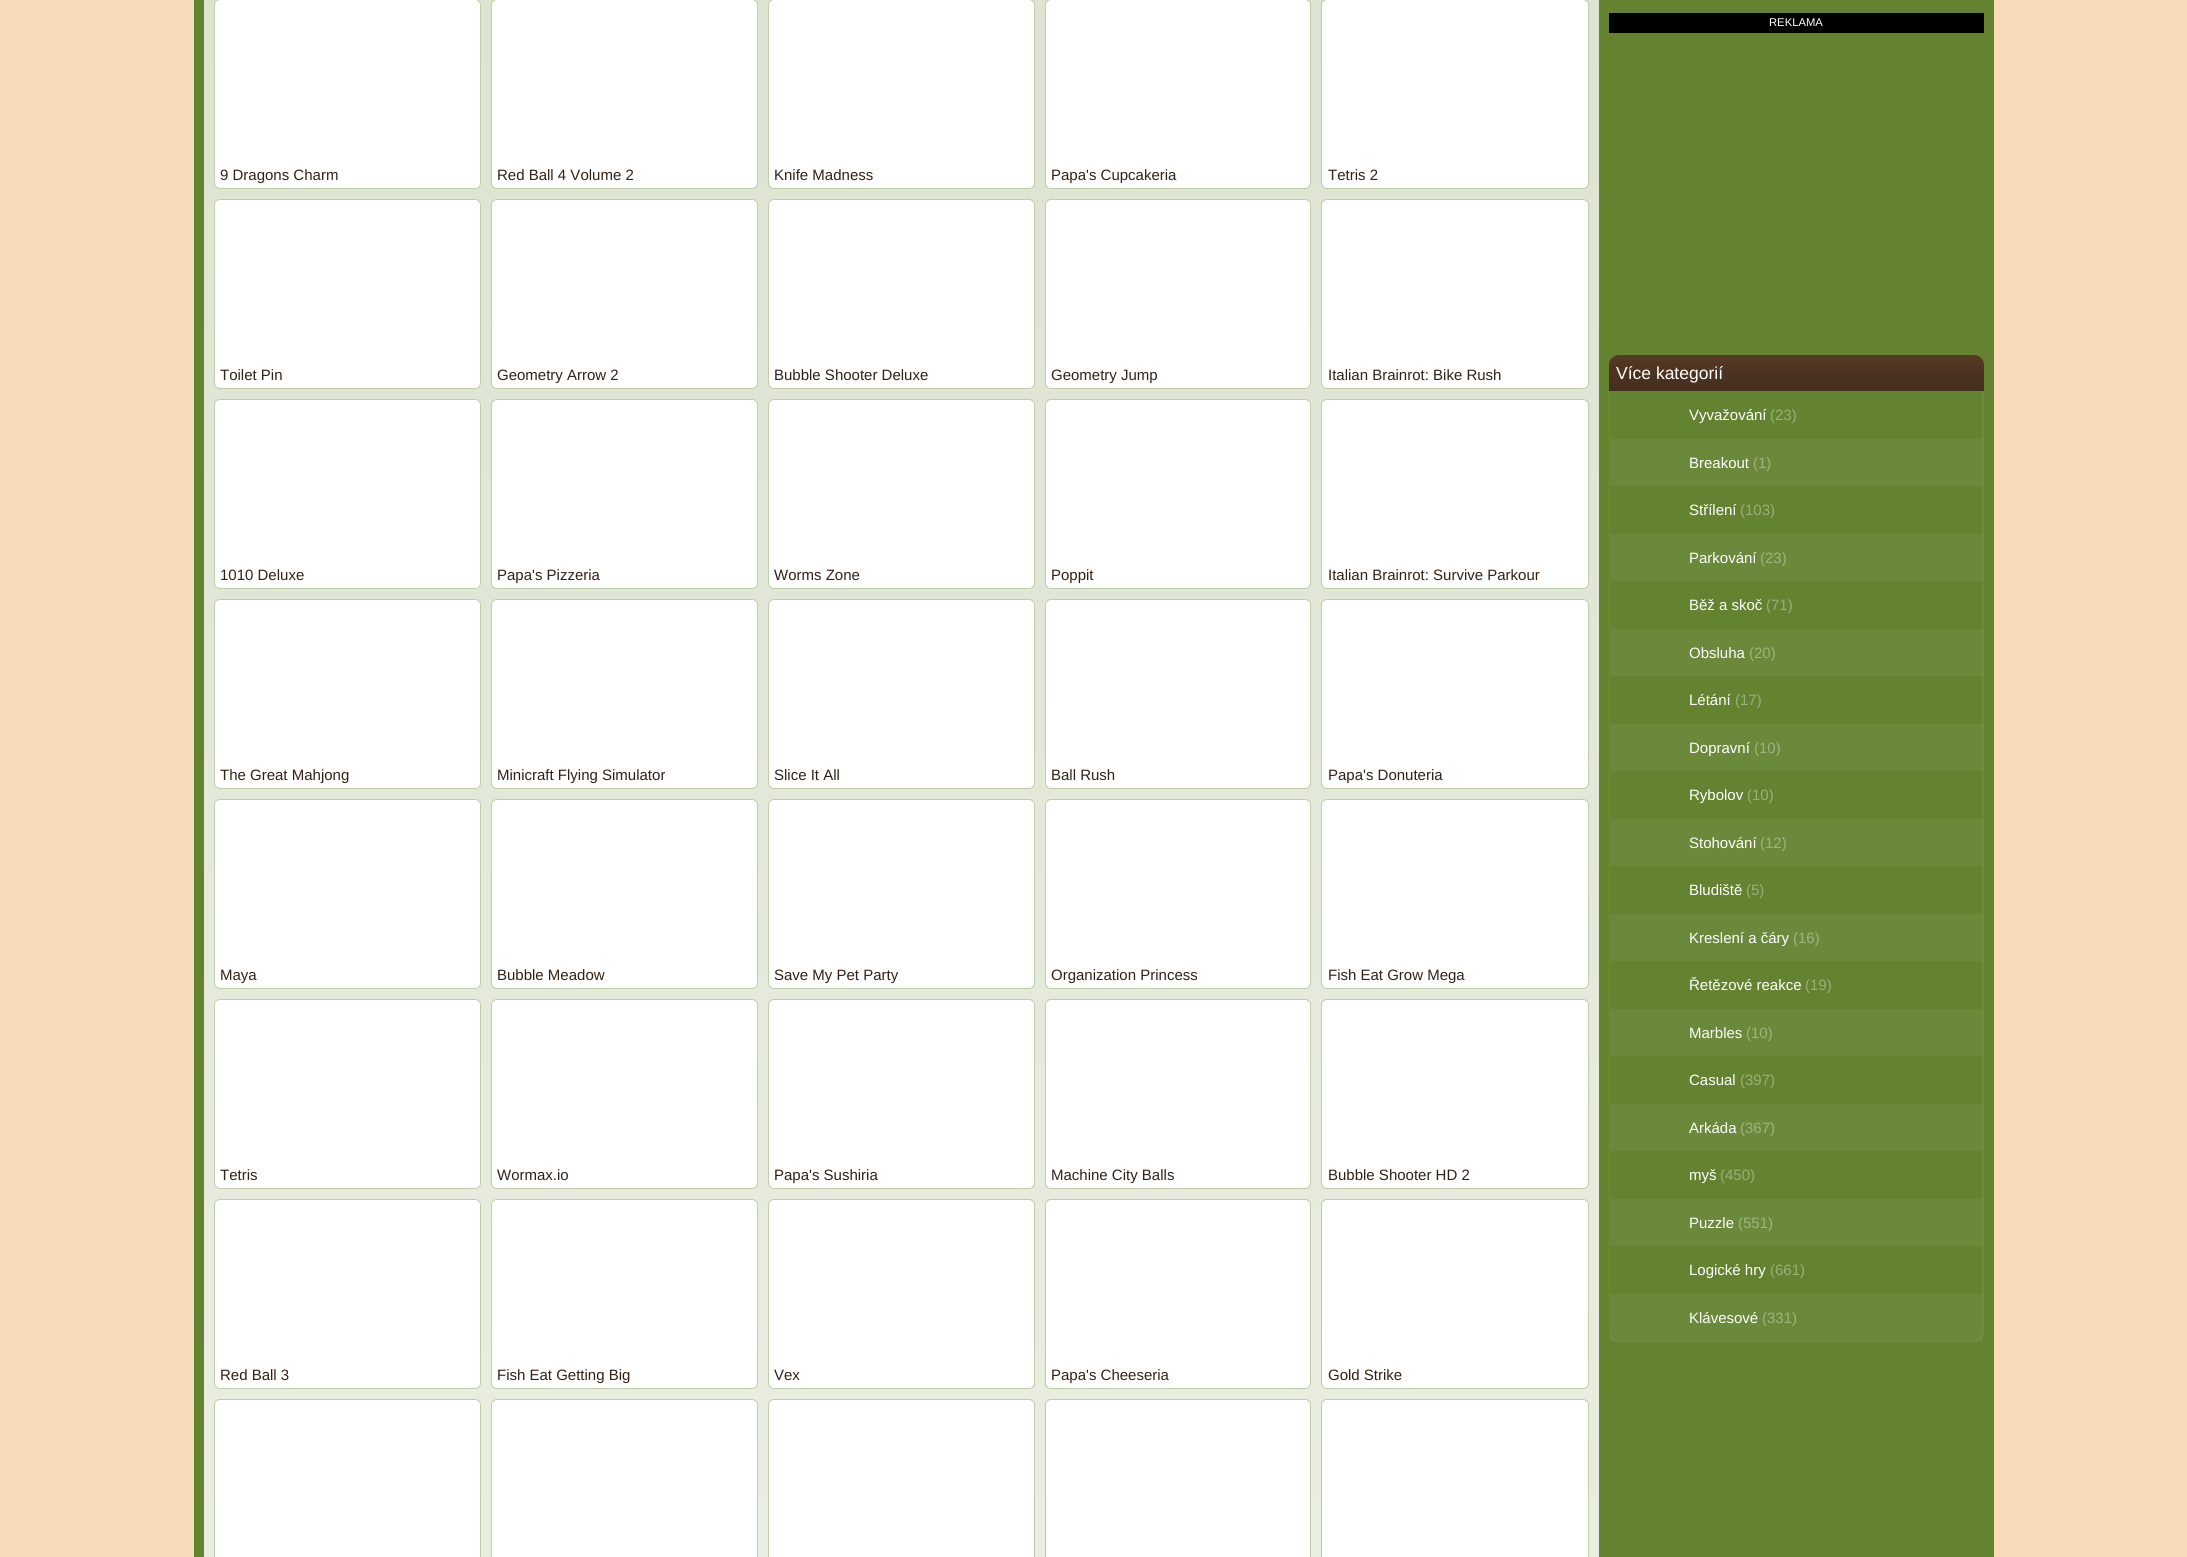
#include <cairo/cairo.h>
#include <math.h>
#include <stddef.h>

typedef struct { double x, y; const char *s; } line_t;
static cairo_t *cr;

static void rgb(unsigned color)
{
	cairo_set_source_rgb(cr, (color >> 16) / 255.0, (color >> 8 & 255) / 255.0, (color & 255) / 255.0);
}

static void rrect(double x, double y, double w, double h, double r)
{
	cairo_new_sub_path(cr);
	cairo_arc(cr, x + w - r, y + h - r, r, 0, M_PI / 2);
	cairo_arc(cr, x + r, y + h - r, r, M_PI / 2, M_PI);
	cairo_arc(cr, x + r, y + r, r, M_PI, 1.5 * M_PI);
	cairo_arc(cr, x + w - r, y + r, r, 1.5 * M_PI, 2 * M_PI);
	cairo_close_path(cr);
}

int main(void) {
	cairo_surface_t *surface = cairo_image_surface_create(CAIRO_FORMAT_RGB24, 2187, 1557);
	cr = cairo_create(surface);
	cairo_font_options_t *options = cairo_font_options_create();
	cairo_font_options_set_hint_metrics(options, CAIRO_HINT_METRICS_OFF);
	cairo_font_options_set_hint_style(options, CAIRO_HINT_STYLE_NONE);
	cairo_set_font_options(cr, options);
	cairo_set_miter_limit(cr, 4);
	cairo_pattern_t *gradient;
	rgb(0xf7dcbc);
	cairo_paint(cr);
	rgb(0x638331);
	cairo_rectangle(cr, 194, 0, 1800, 1557);
	cairo_fill(cr);
	gradient = cairo_pattern_create_linear(901, -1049, 901, 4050);
	cairo_pattern_add_color_stop_rgba(gradient, 0, 0.827, 0.863, 0.769, 1);
	cairo_pattern_add_color_stop_rgba(gradient, 1, 1, 1, 1, 1);
	cairo_set_source(cr, gradient);
	cairo_pattern_destroy(gradient);
	cairo_rectangle(cr, 204, 0, 1395, 1557);
	cairo_fill(cr);
	rgb(0xffffff);
	rrect(214.5, -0.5, 266, 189, 5.5);
	cairo_fill_preserve(cr);
	rgb(0xc0cdaa);
	cairo_set_line_width(cr, 1);
	cairo_stroke(cr);
	rgb(0xffffff);
	rrect(491.5, -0.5, 266, 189, 5.5);
	cairo_fill_preserve(cr);
	rgb(0xc0cdaa);
	cairo_stroke(cr);
	rgb(0xffffff);
	rrect(768.5, -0.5, 266, 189, 5.5);
	cairo_fill_preserve(cr);
	rgb(0xc0cdaa);
	cairo_stroke(cr);
	rgb(0xffffff);
	rrect(1045.5, -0.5, 265, 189, 5.5);
	cairo_fill_preserve(cr);
	rgb(0xc0cdaa);
	cairo_stroke(cr);
	rgb(0xffffff);
	rrect(1321.5, -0.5, 267, 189, 5.5);
	cairo_fill_preserve(cr);
	rgb(0xc0cdaa);
	cairo_stroke(cr);
	rgb(0xffffff);
	rrect(214.5, 199.5, 266, 189, 5.5);
	cairo_fill_preserve(cr);
	rgb(0xc0cdaa);
	cairo_stroke(cr);
	rgb(0xffffff);
	rrect(491.5, 199.5, 266, 189, 5.5);
	cairo_fill_preserve(cr);
	rgb(0xc0cdaa);
	cairo_stroke(cr);
	rgb(0xffffff);
	rrect(768.5, 199.5, 266, 189, 5.5);
	cairo_fill_preserve(cr);
	rgb(0xc0cdaa);
	cairo_stroke(cr);
	rgb(0xffffff);
	rrect(1045.5, 199.5, 265, 189, 5.5);
	cairo_fill_preserve(cr);
	rgb(0xc0cdaa);
	cairo_stroke(cr);
	rgb(0xffffff);
	rrect(1321.5, 199.5, 267, 189, 5.5);
	cairo_fill_preserve(cr);
	rgb(0xc0cdaa);
	cairo_stroke(cr);
	rgb(0xffffff);
	rrect(214.5, 399.5, 266, 189, 5.5);
	cairo_fill_preserve(cr);
	rgb(0xc0cdaa);
	cairo_stroke(cr);
	rgb(0xffffff);
	rrect(491.5, 399.5, 266, 189, 5.5);
	cairo_fill_preserve(cr);
	rgb(0xc0cdaa);
	cairo_stroke(cr);
	rgb(0xffffff);
	rrect(768.5, 399.5, 266, 189, 5.5);
	cairo_fill_preserve(cr);
	rgb(0xc0cdaa);
	cairo_stroke(cr);
	rgb(0xffffff);
	rrect(1045.5, 399.5, 265, 189, 5.5);
	cairo_fill_preserve(cr);
	rgb(0xc0cdaa);
	cairo_stroke(cr);
	rgb(0xffffff);
	rrect(1321.5, 399.5, 267, 189, 5.5);
	cairo_fill_preserve(cr);
	rgb(0xc0cdaa);
	cairo_stroke(cr);
	rgb(0xffffff);
	rrect(214.5, 599.5, 266, 189, 5.5);
	cairo_fill_preserve(cr);
	rgb(0xc0cdaa);
	cairo_stroke(cr);
	rgb(0xffffff);
	rrect(491.5, 599.5, 266, 189, 5.5);
	cairo_fill_preserve(cr);
	rgb(0xc0cdaa);
	cairo_stroke(cr);
	rgb(0xffffff);
	rrect(768.5, 599.5, 266, 189, 5.5);
	cairo_fill_preserve(cr);
	rgb(0xc0cdaa);
	cairo_stroke(cr);
	rgb(0xffffff);
	rrect(1045.5, 599.5, 265, 189, 5.5);
	cairo_fill_preserve(cr);
	rgb(0xc0cdaa);
	cairo_stroke(cr);
	rgb(0xffffff);
	rrect(1321.5, 599.5, 267, 189, 5.5);
	cairo_fill_preserve(cr);
	rgb(0xc0cdaa);
	cairo_stroke(cr);
	rgb(0xffffff);
	rrect(214.5, 799.5, 266, 189, 5.5);
	cairo_fill_preserve(cr);
	rgb(0xc0cdaa);
	cairo_stroke(cr);
	rgb(0xffffff);
	rrect(491.5, 799.5, 266, 189, 5.5);
	cairo_fill_preserve(cr);
	rgb(0xc0cdaa);
	cairo_stroke(cr);
	rgb(0xffffff);
	rrect(768.5, 799.5, 266, 189, 5.5);
	cairo_fill_preserve(cr);
	rgb(0xc0cdaa);
	cairo_stroke(cr);
	rgb(0xffffff);
	rrect(1045.5, 799.5, 265, 189, 5.5);
	cairo_fill_preserve(cr);
	rgb(0xc0cdaa);
	cairo_stroke(cr);
	rgb(0xffffff);
	rrect(1321.5, 799.5, 267, 189, 5.5);
	cairo_fill_preserve(cr);
	rgb(0xc0cdaa);
	cairo_stroke(cr);
	rgb(0xffffff);
	rrect(214.5, 999.5, 266, 189, 5.5);
	cairo_fill_preserve(cr);
	rgb(0xc0cdaa);
	cairo_stroke(cr);
	rgb(0xffffff);
	rrect(491.5, 999.5, 266, 189, 5.5);
	cairo_fill_preserve(cr);
	rgb(0xc0cdaa);
	cairo_stroke(cr);
	rgb(0xffffff);
	rrect(768.5, 999.5, 266, 189, 5.5);
	cairo_fill_preserve(cr);
	rgb(0xc0cdaa);
	cairo_stroke(cr);
	rgb(0xffffff);
	rrect(1045.5, 999.5, 265, 189, 5.5);
	cairo_fill_preserve(cr);
	rgb(0xc0cdaa);
	cairo_stroke(cr);
	rgb(0xffffff);
	rrect(1321.5, 999.5, 267, 189, 5.5);
	cairo_fill_preserve(cr);
	rgb(0xc0cdaa);
	cairo_stroke(cr);
	rgb(0xffffff);
	rrect(214.5, 1199.5, 266, 189, 5.5);
	cairo_fill_preserve(cr);
	rgb(0xc0cdaa);
	cairo_stroke(cr);
	rgb(0xffffff);
	rrect(491.5, 1199.5, 266, 189, 5.5);
	cairo_fill_preserve(cr);
	rgb(0xc0cdaa);
	cairo_stroke(cr);
	rgb(0xffffff);
	rrect(768.5, 1199.5, 266, 189, 5.5);
	cairo_fill_preserve(cr);
	rgb(0xc0cdaa);
	cairo_stroke(cr);
	rgb(0xffffff);
	rrect(1045.5, 1199.5, 265, 189, 5.5);
	cairo_fill_preserve(cr);
	rgb(0xc0cdaa);
	cairo_stroke(cr);
	rgb(0xffffff);
	rrect(1321.5, 1199.5, 267, 189, 5.5);
	cairo_fill_preserve(cr);
	rgb(0xc0cdaa);
	cairo_stroke(cr);
	rgb(0xffffff);
	rrect(214.5, 1399.5, 266, 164, 5.5);
	cairo_fill_preserve(cr);
	rgb(0xc0cdaa);
	cairo_stroke(cr);
	rgb(0xffffff);
	rrect(491.5, 1399.5, 266, 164, 5.5);
	cairo_fill_preserve(cr);
	rgb(0xc0cdaa);
	cairo_stroke(cr);
	rgb(0xffffff);
	rrect(768.5, 1399.5, 266, 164, 5.5);
	cairo_fill_preserve(cr);
	rgb(0xc0cdaa);
	cairo_stroke(cr);
	rgb(0xffffff);
	rrect(1045.5, 1399.5, 265, 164, 5.5);
	cairo_fill_preserve(cr);
	rgb(0xc0cdaa);
	cairo_stroke(cr);
	rgb(0xffffff);
	rrect(1321.5, 1399.5, 267, 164, 5.5);
	cairo_fill_preserve(cr);
	rgb(0xc0cdaa);
	cairo_stroke(cr);
	rgb(0x000000);
	cairo_rectangle(cr, 1609, 13, 375, 20);
	cairo_fill(cr);
	rgb(0x553924);
	cairo_new_path(cr);
	cairo_move_to(cr, 1619, 355);
	cairo_line_to(cr, 1974, 355);
	cairo_curve_to(cr, 1979.5, 355, 1984, 359.5, 1984, 365);
	cairo_line_to(cr, 1984, 391);
	cairo_line_to(cr, 1609, 391);
	cairo_line_to(cr, 1609, 365);
	cairo_curve_to(cr, 1609, 359.5, 1613.5, 355, 1619, 355);
	cairo_close_path(cr);
	cairo_fill(cr);
	gradient = cairo_pattern_create_linear(1796, 355, 1796, 391);
	cairo_pattern_add_color_stop_rgba(gradient, 0, 0, 0, 0, 0);
	cairo_pattern_add_color_stop_rgba(gradient, 1, 0, 0, 0, 0.2);
	cairo_set_source(cr, gradient);
	cairo_pattern_destroy(gradient);
	cairo_rectangle(cr, 1609, 359, 375, 32);
	cairo_fill(cr);
	rgb(0x6b8e35);
	cairo_set_fill_rule(cr, CAIRO_FILL_RULE_EVEN_ODD);
	cairo_new_path(cr);
	cairo_move_to(cr, 1609, 391);
	cairo_line_to(cr, 1984, 391);
	cairo_line_to(cr, 1984, 1332);
	cairo_curve_to(cr, 1984, 1338, 1979, 1342, 1974, 1342);
	cairo_line_to(cr, 1619, 1342);
	cairo_curve_to(cr, 1613, 1342, 1609, 1338, 1609, 1332);
	cairo_close_path(cr);
	cairo_move_to(cr, 1610, 391);
	cairo_line_to(cr, 1982, 391);
	cairo_line_to(cr, 1982, 1332);
	cairo_curve_to(cr, 1982, 1337, 1979, 1341, 1974, 1341);
	cairo_line_to(cr, 1619, 1341);
	cairo_curve_to(cr, 1614, 1341, 1610, 1337, 1610, 1332);
	cairo_close_path(cr);
	cairo_fill(cr);
	cairo_set_source_rgba(cr, 1, 1, 1, 0.05);
	cairo_rectangle(cr, 1610, 439, 373, 47);
	cairo_fill(cr);
	cairo_rectangle(cr, 1610, 534, 373, 47);
	cairo_fill(cr);
	cairo_rectangle(cr, 1610, 629, 373, 47);
	cairo_fill(cr);
	cairo_rectangle(cr, 1610, 724, 373, 47);
	cairo_fill(cr);
	cairo_rectangle(cr, 1610, 819, 373, 47);
	cairo_fill(cr);
	cairo_rectangle(cr, 1610, 914, 373, 47);
	cairo_fill(cr);
	cairo_rectangle(cr, 1610, 1009, 373, 47);
	cairo_fill(cr);
	cairo_rectangle(cr, 1610, 1104, 373, 47);
	cairo_fill(cr);
	cairo_rectangle(cr, 1610, 1199, 373, 47);
	cairo_fill(cr);
	cairo_rectangle(cr, 1610, 1294, 373, 47);
	cairo_fill(cr);
	cairo_select_font_face(cr, "Liberation Sans", CAIRO_FONT_SLANT_NORMAL, CAIRO_FONT_WEIGHT_NORMAL);
	cairo_set_font_size(cr, 15);
	rgb(0x312115);
	{
		static const line_t items[] = {
			{220, 180, "9 Dragons Charm"},
			{497, 180, "Red Ball 4 Volume 2"},
			{774, 180, "Knife Madness"},
			{1051, 180, "Papa's Cupcakeria"},
			{1328, 180, "Tetris 2"},
			{220, 380, "Toilet Pin"},
			{497, 380, "Geometry Arrow 2"},
			{774, 380, "Bubble Shooter Deluxe"},
			{1051, 380, "Geometry Jump"},
			{1328, 380, "Italian Brainrot: Bike Rush"},
			{220, 580, "1010 Deluxe"},
			{497, 580, "Papa's Pizzeria"},
			{774, 580, "Worms Zone"},
			{1051, 580, "Poppit"},
			{1328, 580, "Italian Brainrot: Survive Parkour"},
			{220, 780, "The Great Mahjong"},
			{497, 780, "Minicraft Flying Simulator"},
			{774, 780, "Slice It All"},
			{1051, 780, "Ball Rush"},
			{1328, 780, "Papa's Donuteria"},
			{220, 980, "Maya"},
			{497, 980, "Bubble Meadow"},
			{774, 980, "Save My Pet Party"},
			{1051, 980, "Organization Princess"},
			{1328, 980, "Fish Eat Grow Mega"},
			{220, 1180, "Tetris"},
			{497, 1180, "Wormax.io"},
			{774, 1180, "Papa's Sushiria"},
			{1051, 1180, "Machine City Balls"},
			{1328, 1180, "Bubble Shooter HD 2"},
			{220, 1380, "Red Ball 3"},
			{497, 1380, "Fish Eat Getting Big"},
			{774, 1380, "Vex"},
			{1051, 1380, "Papa's Cheeseria"},
			{1328, 1380, "Gold Strike"},
		};
		for (size_t i = 0; i < sizeof items / sizeof *items; i++) {
			cairo_move_to(cr, items[i].x, items[i].y);
			cairo_show_text(cr, items[i].s);
		}
	}
	cairo_set_font_size(cr, 11.25);
	rgb(0xffffff);
	cairo_move_to(cr, 1769, 26);
	cairo_show_text(cr, "REKLAMA");
	cairo_set_font_size(cr, 17.5);
	cairo_move_to(cr, 1616, 379);
	cairo_show_text(cr, "Více kategorií");
	cairo_set_font_size(cr, 15);
	cairo_move_to(cr, 1689, 420);
	cairo_show_text(cr, "Vyvažování");
	rgb(0x9aae79);
	cairo_move_to(cr, 1770, 420);
	cairo_show_text(cr, "(23)");
	rgb(0xffffff);
	cairo_move_to(cr, 1689, 468);
	cairo_show_text(cr, "Breakout");
	rgb(0x9fb280);
	cairo_move_to(cr, 1753, 468);
	cairo_show_text(cr, "(1)");
	rgb(0xffffff);
	cairo_move_to(cr, 1689, 515);
	cairo_show_text(cr, "Střílení");
	rgb(0x9aae79);
	cairo_move_to(cr, 1740, 515);
	cairo_show_text(cr, "(103)");
	rgb(0xffffff);
	cairo_move_to(cr, 1689, 563);
	cairo_show_text(cr, "Parkování");
	rgb(0x9fb280);
	cairo_move_to(cr, 1760, 563);
	cairo_show_text(cr, "(23)");
	rgb(0xffffff);
	cairo_move_to(cr, 1689, 610);
	cairo_show_text(cr, "Běž a skoč");
	rgb(0x9aae79);
	cairo_move_to(cr, 1766, 610);
	cairo_show_text(cr, "(71)");
	rgb(0xffffff);
	cairo_move_to(cr, 1689, 658);
	cairo_show_text(cr, "Obsluha");
	rgb(0x9fb280);
	cairo_move_to(cr, 1749, 658);
	cairo_show_text(cr, "(20)");
	rgb(0xffffff);
	cairo_move_to(cr, 1689, 705);
	cairo_show_text(cr, "Létání");
	rgb(0x9aae79);
	cairo_move_to(cr, 1735, 705);
	cairo_show_text(cr, "(17)");
	rgb(0xffffff);
	cairo_move_to(cr, 1689, 753);
	cairo_show_text(cr, "Dopravní");
	rgb(0x9fb280);
	cairo_move_to(cr, 1754, 753);
	cairo_show_text(cr, "(10)");
	rgb(0xffffff);
	cairo_move_to(cr, 1689, 800);
	cairo_show_text(cr, "Rybolov");
	rgb(0x9aae79);
	cairo_move_to(cr, 1747, 800);
	cairo_show_text(cr, "(10)");
	rgb(0xffffff);
	cairo_move_to(cr, 1689, 848);
	cairo_show_text(cr, "Stohování");
	rgb(0x9fb280);
	cairo_move_to(cr, 1760, 848);
	cairo_show_text(cr, "(12)");
	rgb(0xffffff);
	cairo_move_to(cr, 1689, 895);
	cairo_show_text(cr, "Bludiště");
	rgb(0x9aae79);
	cairo_move_to(cr, 1746, 895);
	cairo_show_text(cr, "(5)");
	rgb(0xffffff);
	cairo_move_to(cr, 1689, 943);
	cairo_show_text(cr, "Kreslení a čáry");
	rgb(0x9fb280);
	cairo_move_to(cr, 1793, 943);
	cairo_show_text(cr, "(16)");
	rgb(0xffffff);
	cairo_move_to(cr, 1689, 990);
	cairo_show_text(cr, "Řetězové reakce");
	rgb(0x9aae79);
	cairo_move_to(cr, 1805, 990);
	cairo_show_text(cr, "(19)");
	rgb(0xffffff);
	cairo_move_to(cr, 1689, 1038);
	cairo_show_text(cr, "Marbles");
	rgb(0x9fb280);
	cairo_move_to(cr, 1746, 1038);
	cairo_show_text(cr, "(10)");
	rgb(0xffffff);
	cairo_move_to(cr, 1689, 1085);
	cairo_show_text(cr, "Casual");
	rgb(0x9aae79);
	cairo_move_to(cr, 1740, 1085);
	cairo_show_text(cr, "(397)");
	rgb(0xffffff);
	cairo_move_to(cr, 1689, 1133);
	cairo_show_text(cr, "Arkáda");
	rgb(0x9fb280);
	cairo_move_to(cr, 1740, 1133);
	cairo_show_text(cr, "(367)");
	rgb(0xffffff);
	cairo_move_to(cr, 1689, 1180);
	cairo_show_text(cr, "myš");
	rgb(0x9aae79);
	cairo_move_to(cr, 1720, 1180);
	cairo_show_text(cr, "(450)");
	rgb(0xffffff);
	cairo_move_to(cr, 1689, 1228);
	cairo_show_text(cr, "Puzzle");
	rgb(0x9fb280);
	cairo_move_to(cr, 1738, 1228);
	cairo_show_text(cr, "(551)");
	rgb(0xffffff);
	cairo_move_to(cr, 1689, 1275);
	cairo_show_text(cr, "Logické hry");
	rgb(0x9aae79);
	cairo_move_to(cr, 1770, 1275);
	cairo_show_text(cr, "(661)");
	rgb(0xffffff);
	cairo_move_to(cr, 1689, 1323);
	cairo_show_text(cr, "Klávesové");
	rgb(0x9fb280);
	cairo_move_to(cr, 1762, 1323);
	cairo_show_text(cr, "(331)");
	cairo_surface_write_to_png(surface, "page.png");
	cairo_font_options_destroy(options);
	cairo_destroy(cr);
	cairo_surface_destroy(surface);
	return 0;
}
